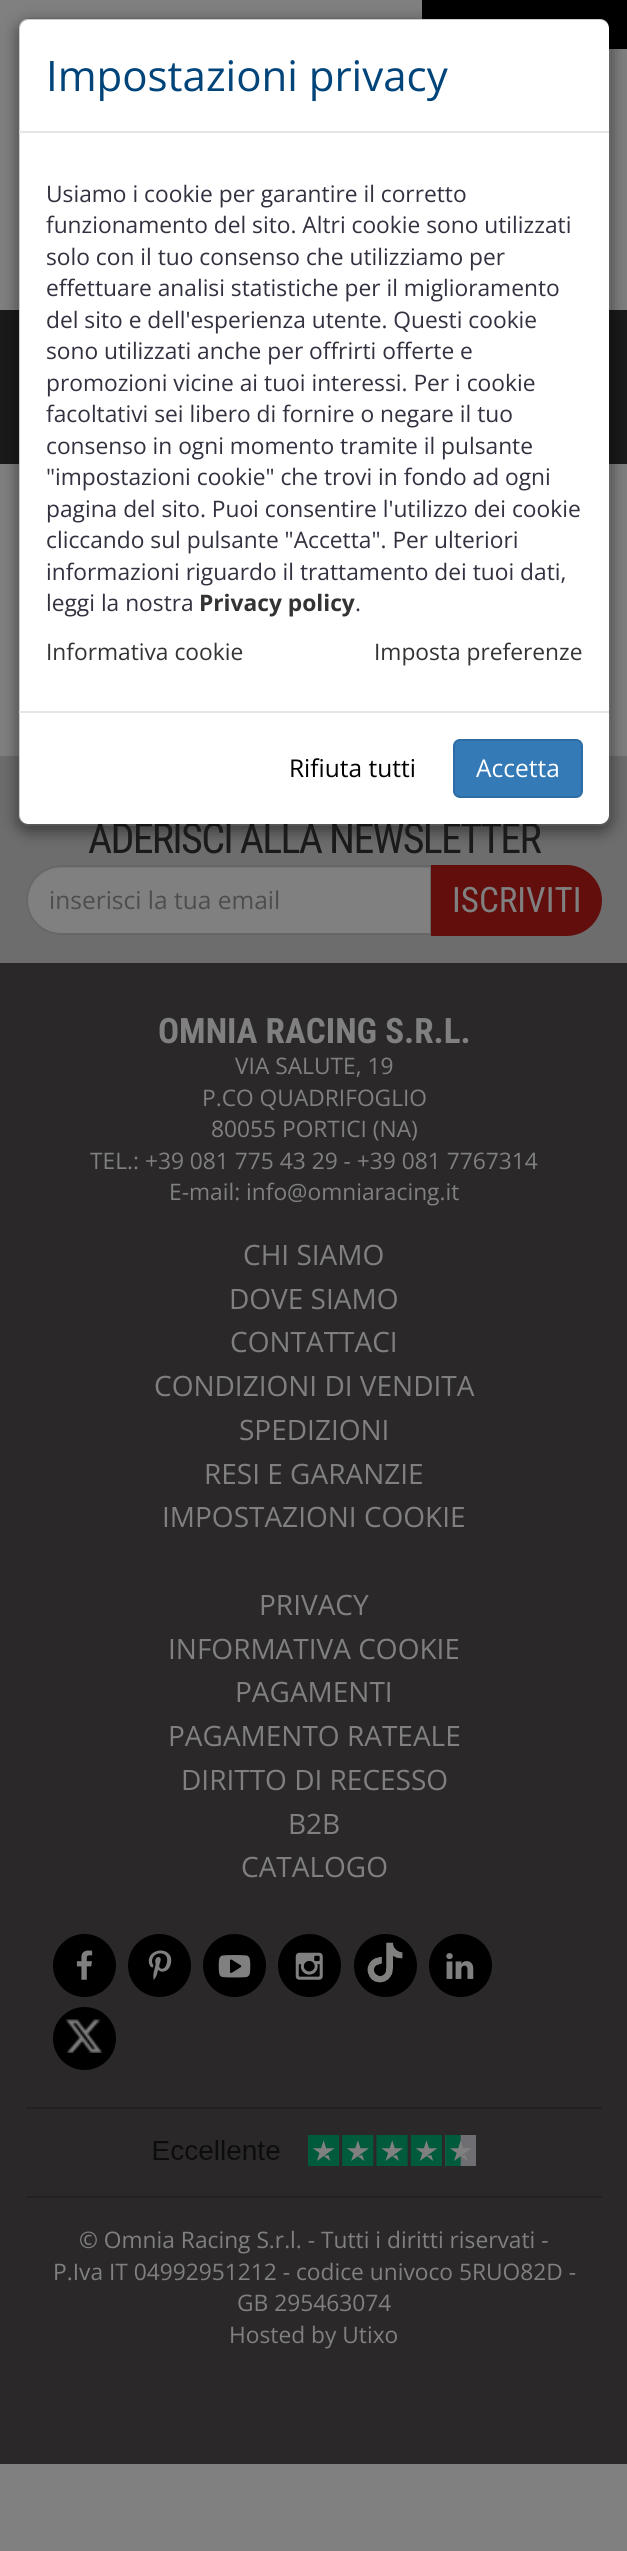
#include <cairo/cairo.h>
#include <math.h>
#include <stddef.h>

typedef struct { double x, y; const char *s; } line_t;
typedef struct { double x, y, w, h; unsigned color; } box_t;
static cairo_t *cr;

static void rgb(unsigned color)
{
	cairo_set_source_rgb(cr, (color >> 16) / 255.0, (color >> 8 & 255) / 255.0, (color & 255) / 255.0);
}

static void tracked(double x, double y, const char *s, double letter, double word)
{
	cairo_move_to(cr, x, y);
	while (*s) {
		char ch[5] = {0};
		int n = 0;
		do ch[n++] = *s++; while ((*s & 0xC0) == 0x80);
		cairo_show_text(cr, ch);
		cairo_rel_move_to(cr, letter + word * (*ch == ' '), 0);
	}
}

static void rrect(double x, double y, double w, double h, double r)
{
	cairo_new_sub_path(cr);
	cairo_arc(cr, x + w - r, y + h - r, r, 0, M_PI / 2);
	cairo_arc(cr, x + r, y + h - r, r, M_PI / 2, M_PI);
	cairo_arc(cr, x + r, y + r, r, M_PI, 1.5 * M_PI);
	cairo_arc(cr, x + w - r, y + r, r, 1.5 * M_PI, 2 * M_PI);
	cairo_close_path(cr);
}

static void soft_shadow(double x, double y, double w, double h, double r, double blur, double alpha)
{
	cairo_push_group_with_content(cr, CAIRO_CONTENT_ALPHA);
	cairo_set_operator(cr, CAIRO_OPERATOR_SOURCE);
	for (int i = 15; i >= -15 && fmin(w, h) + blur * i / 3 > 0; i -= 2) {
		double e = blur * i / 6;
		cairo_set_source_rgba(cr, 0, 0, 0, alpha * erfc((i - 1) / 8.5) / 2);
		rrect(x - e, y - e, w + 2 * e, h + 2 * e, fmax(0, fmin(r + e + blur * .6, fmin(w, h) / 2 + e)));
		cairo_fill(cr);
	}
	cairo_pattern_t *soft = cairo_pop_group(cr);
	cairo_mask(cr, soft);
	cairo_pattern_destroy(soft);
}

static void image(const char *path, double x, double y, double w, double h)
{
	cairo_surface_t *image = cairo_image_surface_create_from_png(path);
	cairo_save(cr);
	cairo_set_source_surface(cr, image, x, y);
	cairo_rectangle(cr, x, y, w, h);
	cairo_fill(cr);
	cairo_restore(cr);
	cairo_surface_destroy(image);
}

int main(void) {
	cairo_surface_t *surface = cairo_image_surface_create(CAIRO_FORMAT_RGB24, 627, 2551);
	cr = cairo_create(surface);
	cairo_font_options_t *options = cairo_font_options_create();
	cairo_font_options_set_hint_metrics(options, CAIRO_HINT_METRICS_OFF);
	cairo_font_options_set_hint_style(options, CAIRO_HINT_STYLE_NONE);
	cairo_set_font_options(cr, options);
	cairo_set_miter_limit(cr, 4);
	rgb(0x808080);
	cairo_paint(cr);
	{
		static const box_t items[] = {
			{422, 0, 205, 49, 0x000000},
			{0, 310, 627, 154, 0x1a1a1a},
			{0, 756, 627, 207, 0x6d6d6d},
		};
		for (size_t i = 0; i < sizeof items / sizeof *items; i++) {
			rgb(items[i].color);
			cairo_rectangle(cr, items[i].x, items[i].y, items[i].w, items[i].h);
			cairo_fill(cr);
		}
	}
	cairo_save(cr);
	cairo_set_fill_rule(cr, CAIRO_FILL_RULE_EVEN_ODD);
	cairo_new_path(cr);
	cairo_move_to(cr, 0, 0);
	cairo_line_to(cr, 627, 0);
	cairo_line_to(cr, 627, 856);
	cairo_line_to(cr, 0, 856);
	cairo_close_path(cr);
	cairo_move_to(cr, 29, 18);
	cairo_line_to(cr, 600, 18);
	cairo_curve_to(cr, 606, 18, 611, 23, 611, 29);
	cairo_line_to(cr, 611, 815);
	cairo_curve_to(cr, 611, 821, 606, 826, 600, 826);
	cairo_line_to(cr, 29, 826);
	cairo_curve_to(cr, 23, 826, 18, 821, 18, 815);
	cairo_line_to(cr, 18, 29);
	cairo_curve_to(cr, 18, 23, 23, 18, 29, 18);
	cairo_close_path(cr);
	cairo_clip(cr);
	rgb(0x000000);
	soft_shadow(18, 23, 593, 808, 11, 8, 0.5);
	cairo_restore(cr);
	rgb(0x808080);
	cairo_new_path(cr);
	cairo_move_to(cr, 61, 865);
	cairo_line_to(cr, 432, 865);
	cairo_line_to(cr, 432, 935);
	cairo_line_to(cr, 61, 935);
	cairo_curve_to(cr, 41.5, 935, 26, 919.5, 26, 900);
	cairo_curve_to(cr, 26, 880.5, 41.5, 865, 61, 865);
	cairo_close_path(cr);
	cairo_fill(cr);
	rgb(0x767676);
	cairo_new_path(cr);
	cairo_move_to(cr, 61, 868);
	cairo_line_to(cr, 430, 868);
	cairo_line_to(cr, 430, 933);
	cairo_line_to(cr, 431, 933);
	cairo_line_to(cr, 431, 866);
	cairo_line_to(cr, 62, 866);
	cairo_curve_to(cr, 43, 866, 28, 881, 28, 900);
	cairo_curve_to(cr, 28, 883, 43, 868, 61, 868);
	cairo_close_path(cr);
	cairo_fill(cr);
	cairo_new_path(cr);
	cairo_move_to(cr, 61, 866);
	cairo_line_to(cr, 431, 866);
	cairo_line_to(cr, 431, 934);
	cairo_line_to(cr, 61, 934);
	cairo_curve_to(cr, 42, 934, 27, 919, 27, 900);
	cairo_curve_to(cr, 27, 881, 42, 866, 61, 866);
	cairo_close_path(cr);
	rgb(0x666666);
	cairo_stroke(cr);
	rgb(0x610e0c);
	cairo_new_path(cr);
	cairo_move_to(cr, 431, 865);
	cairo_line_to(cr, 566.5, 865);
	cairo_curve_to(cr, 586, 865, 602, 881, 602, 900.5);
	cairo_curve_to(cr, 602, 920, 586, 936, 566.5, 936);
	cairo_line_to(cr, 431, 936);
	cairo_close_path(cr);
	cairo_fill(cr);
	rgb(0x2a2828);
	cairo_rectangle(cr, 0, 963, 627, 1501);
	cairo_fill(cr);
	rgb(0x000000);
	cairo_arc(cr, 84.5, 1965.5, 31.5, 0, 2 * M_PI);
	cairo_fill(cr);
	image("img/1.png", 76, 1950, 17, 30);
	cairo_arc(cr, 159.5, 1965.5, 31.5, 0, 2 * M_PI);
	cairo_fill(cr);
	image("img/2.png", 148, 1950, 24, 30);
	cairo_arc(cr, 234.5, 1965.5, 31.5, 0, 2 * M_PI);
	cairo_fill(cr);
	image("img/3.png", 218, 1955, 33, 23);
	cairo_arc(cr, 309.5, 1965.5, 31.5, 0, 2 * M_PI);
	cairo_fill(cr);
	image("img/4.png", 295, 1952, 28, 28);
	cairo_arc(cr, 385.5, 1965.5, 31.5, 0, 2 * M_PI);
	cairo_fill(cr);
	image("img/5.png", 367, 1942, 36, 41);
	cairo_arc(cr, 460.5, 1965.5, 31.5, 0, 2 * M_PI);
	cairo_fill(cr);
	image("img/6.png", 446, 1953, 28, 26);
	cairo_arc(cr, 84.5, 2038.5, 31.5, 0, 2 * M_PI);
	cairo_fill(cr);
	image("img/7.png", 66, 2019, 36, 34);
	rgb(0x222222);
	cairo_rectangle(cr, 26, 2107, 576, 2);
	cairo_fill(cr);
	image("img/8.png", 153, 2135, 323, 31);
	cairo_rectangle(cr, 26, 2196, 576, 2);
	cairo_fill(cr);
	cairo_select_font_face(cr, "Roboto Condensed", CAIRO_FONT_SLANT_NORMAL, CAIRO_FONT_WEIGHT_NORMAL);
	cairo_set_font_size(cr, 42);
	rgb(0x1a1a1a);
	tracked(88, 853, "ADERISCI ALLA NEWSLETTER", -1.75, 0);
	rgb(0xffffff);
	rrect(19, 19, 590, 805, 9);
	cairo_fill(cr);
	rrect(19, 19, 591, 806, 10);
	cairo_set_source_rgba(cr, 0, 0, 0, 0.2);
	cairo_stroke(cr);
	cairo_select_font_face(cr, "Open Sans", CAIRO_FONT_SLANT_NORMAL, CAIRO_FONT_WEIGHT_NORMAL);
	cairo_set_font_size(cr, 22.75);
	rgb(0x333333);
	cairo_move_to(cr, 46, 660);
	cairo_show_text(cr, "Informativa cookie");
	rgb(0x31313f);
	cairo_move_to(cr, 355, 611);
	cairo_show_text(cr, ".");
	cairo_select_font_face(cr, "Open Sans", CAIRO_FONT_SLANT_NORMAL, CAIRO_FONT_WEIGHT_BOLD);
	rgb(0x333333);
	cairo_move_to(cr, 199, 611);
	cairo_show_text(cr, "Privacy policy");
	cairo_select_font_face(cr, "Open Sans", CAIRO_FONT_SLANT_NORMAL, CAIRO_FONT_WEIGHT_NORMAL);
	rgb(0x31313f);
	{
		static const line_t items[] = {
			{46, 611, "leggi la nostra"},
			{46, 580, "informazioni riguardo il trattamento dei tuoi dati,"},
			{46, 548, "cliccando sul pulsante \"Accetta\". Per ulteriori"},
			{46, 517, "pagina del sito. Puoi consentire l'utilizzo dei cookie"},
			{46, 485, "\"impostazioni cookie\" che trovi in fondo ad ogni"},
			{46, 454, "consenso in ogni momento tramite il pulsante"},
			{46, 422, "facoltativi sei libero di fornire o negare il tuo"},
			{46, 391, "promozioni vicine ai tuoi interessi. Per i cookie"},
			{46, 359, "sono utilizzati anche per offrirti offerte e"},
			{46, 328, "del sito e dell'esperienza utente. Questi cookie"},
			{46, 296, "effettuare analisi statistiche per il miglioramento"},
			{46, 265, "solo con il tuo consenso che utilizziamo per"},
			{46, 233, "funzionamento del sito. Altri cookie sono utilizzati"},
			{46, 202, "Usiamo i cookie per garantire il corretto"},
		};
		for (size_t i = 0; i < sizeof items / sizeof *items; i++) {
			cairo_move_to(cr, items[i].x, items[i].y);
			cairo_show_text(cr, items[i].s);
		}
	}
	rgb(0x333333);
	cairo_move_to(cr, 374, 660);
	cairo_show_text(cr, "Imposta preferenze");
	rgb(0x337ab7);
	rrect(454, 740, 128, 57, 6);
	cairo_fill_preserve(cr);
	rgb(0x2e6da4);
	cairo_stroke(cr);
	cairo_set_font_size(cr, 24.5);
	rgb(0xffffff);
	cairo_move_to(cr, 476, 777);
	cairo_show_text(cr, "Accetta");
	rgb(0x000000);
	cairo_move_to(cr, 289, 777);
	cairo_show_text(cr, "Rifiuta tutti");
	cairo_set_font_size(cr, 42);
	rgb(0x004479);
	cairo_move_to(cr, 46, 91);
	cairo_show_text(cr, "Impostazioni privacy");
	rgb(0xe5e5e5);
	cairo_rectangle(cr, 19, 711, 590, 2);
	cairo_fill(cr);
	cairo_rectangle(cr, 19, 131, 590, 2);
	cairo_fill(cr);
	cairo_set_font_size(cr, 24.5);
	rgb(0x4d4d4d);
	cairo_move_to(cr, 49, 909);
	cairo_show_text(cr, "inserisci la tua email");
	cairo_select_font_face(cr, "Roboto Condensed", CAIRO_FONT_SLANT_NORMAL, CAIRO_FONT_WEIGHT_NORMAL);
	cairo_set_font_size(cr, 35);
	rgb(0x808080);
	cairo_move_to(cr, 452, 912);
	cairo_show_text(cr, "ISCRIVITI");
	cairo_select_font_face(cr, "Roboto Condensed", CAIRO_FONT_SLANT_NORMAL, CAIRO_FONT_WEIGHT_BOLD);
	cairo_move_to(cr, 158, 1043);
	cairo_show_text(cr, "OMNIA RACING S.R.L.");
	cairo_select_font_face(cr, "Open Sans", CAIRO_FONT_SLANT_NORMAL, CAIRO_FONT_WEIGHT_NORMAL);
	cairo_set_font_size(cr, 22.75);
	{
		static const line_t items[] = {
			{235, 1074, "VIA SALUTE, 19"},
			{202, 1106, "P.CO QUADRIFOGLIO"},
			{211, 1137, "80055 PORTICI (NA)"},
			{90, 1169, "TEL.: +39 081 775 43 29 - +39 081 7767314"},
			{169, 1200, "E-mail: info@omniaracing.it"},
		};
		for (size_t i = 0; i < sizeof items / sizeof *items; i++) {
			cairo_move_to(cr, items[i].x, items[i].y);
			cairo_show_text(cr, items[i].s);
		}
	}
	cairo_set_font_size(cr, 28);
	{
		static const line_t items[] = {
			{243, 1265, "CHI SIAMO"},
			{229, 1309, "DOVE SIAMO"},
			{230, 1352, "CONTATTACI"},
			{154, 1396, "CONDIZIONI DI VENDITA"},
			{239, 1440, "SPEDIZIONI"},
			{204, 1484, "RESI E GARANZIE"},
			{162, 1527, "IMPOSTAZIONI COOKIE"},
			{259, 1615, "PRIVACY"},
			{168, 1659, "INFORMATIVA COOKIE"},
			{235, 1702, "PAGAMENTI"},
			{168, 1746, "PAGAMENTO RATEALE"},
			{181, 1790, "DIRITTO DI RECESSO"},
			{288, 1834, "B2B"},
			{241, 1877, "CATALOGO"},
		};
		for (size_t i = 0; i < sizeof items / sizeof *items; i++) {
			cairo_move_to(cr, items[i].x, items[i].y);
			cairo_show_text(cr, items[i].s);
		}
	}
	cairo_set_font_size(cr, 22.75);
	{
		static const line_t items[] = {
			{79, 2248, "© Omnia Racing S.r.l. - Tutti i diritti riservati -"},
			{53, 2280, "P.Iva IT 04992951212 - codice univoco 5RUO82D -"},
			{237, 2311, "GB 295463074"},
			{229, 2343, "Hosted by Utixo"},
		};
		for (size_t i = 0; i < sizeof items / sizeof *items; i++) {
			cairo_move_to(cr, items[i].x, items[i].y);
			cairo_show_text(cr, items[i].s);
		}
	}
	cairo_surface_write_to_png(surface, "page.png");
	cairo_font_options_destroy(options);
	cairo_destroy(cr);
	cairo_surface_destroy(surface);
	return 0;
}
